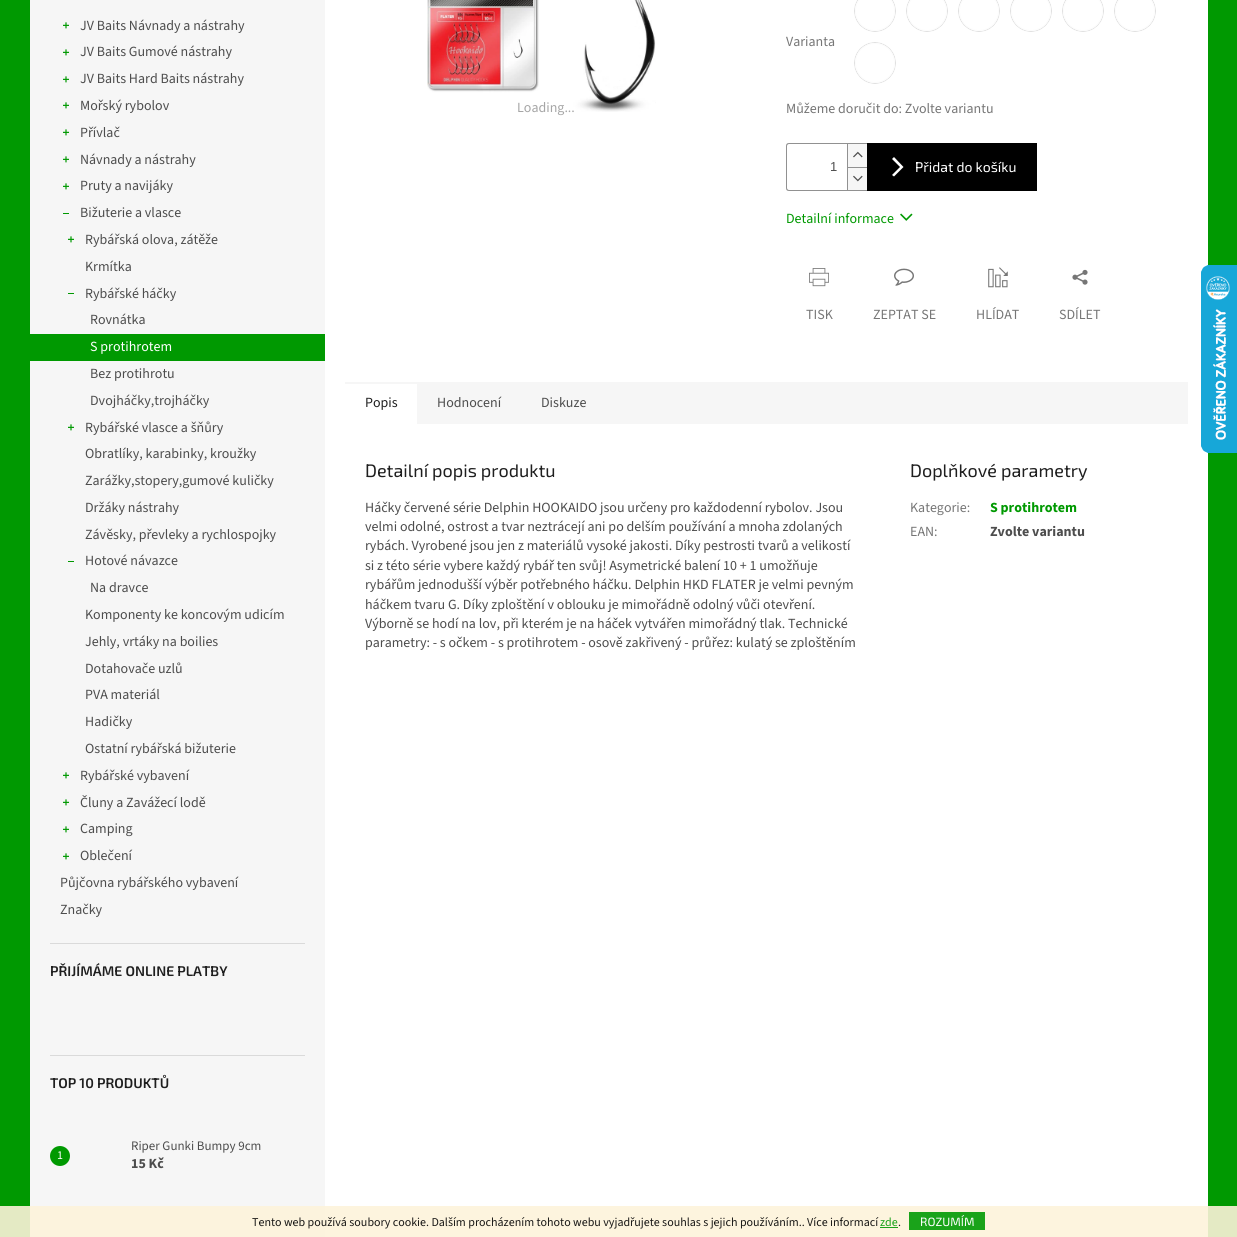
#include <cairo/cairo.h>
#include <math.h>
#include <stddef.h>

typedef struct { double x, y; const char *s; } line_t;
typedef struct { double x, y, w, h; unsigned color; } box_t;
static cairo_t *cr;

static void rgb(unsigned color)
{
	cairo_set_source_rgb(cr, (color >> 16) / 255.0, (color >> 8 & 255) / 255.0, (color & 255) / 255.0);
}

static void rrect(double x, double y, double w, double h, double r)
{
	cairo_new_sub_path(cr);
	cairo_arc(cr, x + w - r, y + h - r, r, 0, M_PI / 2);
	cairo_arc(cr, x + r, y + h - r, r, M_PI / 2, M_PI);
	cairo_arc(cr, x + r, y + r, r, M_PI, 1.5 * M_PI);
	cairo_arc(cr, x + w - r, y + r, r, 1.5 * M_PI, 2 * M_PI);
	cairo_close_path(cr);
}

static void soft_shadow(double x, double y, double w, double h, double r, double blur, double alpha)
{
	cairo_push_group_with_content(cr, CAIRO_CONTENT_ALPHA);
	cairo_set_operator(cr, CAIRO_OPERATOR_SOURCE);
	for (int i = 15; i >= -15 && fmin(w, h) + blur * i / 3 > 0; i -= 2) {
		double e = blur * i / 6;
		cairo_set_source_rgba(cr, 0, 0, 0, alpha * erfc((i - 1) / 8.5) / 2);
		rrect(x - e, y - e, w + 2 * e, h + 2 * e, fmax(0, fmin(r + e + blur * .6, fmin(w, h) / 2 + e)));
		cairo_fill(cr);
	}
	cairo_pattern_t *soft = cairo_pop_group(cr);
	cairo_mask(cr, soft);
	cairo_pattern_destroy(soft);
}

static void image(const char *path, double x, double y, double w, double h)
{
	cairo_surface_t *image = cairo_image_surface_create_from_png(path);
	cairo_save(cr);
	cairo_set_source_surface(cr, image, x, y);
	cairo_rectangle(cr, x, y, w, h);
	cairo_fill(cr);
	cairo_restore(cr);
	cairo_surface_destroy(image);
}

int main(void) {
	cairo_surface_t *surface = cairo_image_surface_create(CAIRO_FORMAT_RGB24, 1237, 1237);
	cr = cairo_create(surface);
	cairo_font_options_t *options = cairo_font_options_create();
	cairo_font_options_set_hint_metrics(options, CAIRO_HINT_METRICS_OFF);
	cairo_font_options_set_hint_style(options, CAIRO_HINT_STYLE_NONE);
	cairo_set_font_options(cr, options);
	cairo_set_miter_limit(cr, 4);
	rgb(0x009901);
	cairo_paint(cr);
	{
		static const box_t items[] = {
			{0, 1206, 1237, 31, 0xe4eac4},
			{325, 0, 883, 1206, 0xffffff},
			{325, 1206, 883, 31, 0xfdf4de},
			{30, 0, 295, 1206, 0xf6f6f6},
			{30, 1206, 295, 31, 0xfcf3dd},
			{50, 943, 255, 1, 0xdadada},
		};
		for (size_t i = 0; i < sizeof items / sizeof *items; i++) {
			rgb(items[i].color);
			cairo_rectangle(cr, items[i].x, items[i].y, items[i].w, items[i].h);
			cairo_fill(cr);
		}
	}
	image("img/1.png", 63, 22, 6, 7);
	image("img/1.png", 63, 49, 6, 7);
	image("img/1.png", 63, 76, 6, 7);
	image("img/1.png", 63, 102, 6, 7);
	image("img/1.png", 63, 129, 6, 7);
	image("img/1.png", 63, 156, 6, 7);
	image("img/1.png", 63, 183, 6, 7);
	rgb(0x009901);
	cairo_rectangle(cr, 63, 213, 6, 1);
	cairo_fill(cr);
	image("img/1.png", 68, 236, 6, 7);
	cairo_rectangle(cr, 68, 293, 6, 1);
	cairo_fill(cr);
	cairo_rectangle(cr, 30, 334, 295, 27);
	cairo_fill(cr);
	image("img/1.png", 68, 424, 6, 7);
	cairo_rectangle(cr, 68, 561, 6, 1);
	cairo_fill(cr);
	image("img/1.png", 63, 772, 6, 7);
	image("img/1.png", 63, 799, 6, 7);
	image("img/1.png", 63, 826, 6, 7);
	image("img/1.png", 63, 853, 6, 7);
	rgb(0xdadada);
	cairo_rectangle(cr, 50, 1055, 255, 1);
	cairo_fill(cr);
	rgb(0x009901);
	cairo_arc(cr, 60, 1156, 10, 0, 2 * M_PI);
	cairo_fill(cr);
	image("img/2.png", 427, 0, 229, 112);
	cairo_save(cr);
	cairo_set_fill_rule(cr, CAIRO_FILL_RULE_EVEN_ODD);
	cairo_new_path(cr);
	cairo_move_to(cr, 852, 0);
	cairo_line_to(cr, 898, 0);
	cairo_line_to(cr, 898, 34);
	cairo_line_to(cr, 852, 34);
	cairo_close_path(cr);
	cairo_move_to(cr, 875, -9);
	cairo_curve_to(cr, 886, -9, 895, 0, 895, 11);
	cairo_curve_to(cr, 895, 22, 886, 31, 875, 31);
	cairo_curve_to(cr, 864, 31, 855, 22, 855, 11);
	cairo_curve_to(cr, 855, 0, 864, -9, 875, -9);
	cairo_close_path(cr);
	cairo_clip(cr);
	rgb(0x000000);
	soft_shadow(855, -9, 40, 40, 20, 0.5, 0.5);
	cairo_restore(cr);
	cairo_arc(cr, 875, 11, 19.5, 0, 2 * M_PI);
	rgb(0xfcfcfc);
	cairo_set_line_width(cr, 1);
	cairo_stroke(cr);
	cairo_save(cr);
	cairo_set_fill_rule(cr, CAIRO_FILL_RULE_EVEN_ODD);
	cairo_new_path(cr);
	cairo_move_to(cr, 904, 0);
	cairo_line_to(cr, 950, 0);
	cairo_line_to(cr, 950, 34);
	cairo_line_to(cr, 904, 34);
	cairo_close_path(cr);
	cairo_move_to(cr, 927, -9);
	cairo_curve_to(cr, 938, -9, 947, 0, 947, 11);
	cairo_curve_to(cr, 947, 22, 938, 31, 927, 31);
	cairo_curve_to(cr, 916, 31, 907, 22, 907, 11);
	cairo_curve_to(cr, 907, 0, 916, -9, 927, -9);
	cairo_close_path(cr);
	cairo_clip(cr);
	rgb(0x000000);
	soft_shadow(907, -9, 40, 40, 20, 0.5, 0.5);
	cairo_restore(cr);
	cairo_arc(cr, 927, 11, 19.5, 0, 2 * M_PI);
	cairo_stroke(cr);
	cairo_save(cr);
	cairo_set_fill_rule(cr, CAIRO_FILL_RULE_EVEN_ODD);
	cairo_new_path(cr);
	cairo_move_to(cr, 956, 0);
	cairo_line_to(cr, 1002, 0);
	cairo_line_to(cr, 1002, 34);
	cairo_line_to(cr, 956, 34);
	cairo_close_path(cr);
	cairo_move_to(cr, 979, -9);
	cairo_curve_to(cr, 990, -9, 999, 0, 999, 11);
	cairo_curve_to(cr, 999, 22, 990, 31, 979, 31);
	cairo_curve_to(cr, 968, 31, 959, 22, 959, 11);
	cairo_curve_to(cr, 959, 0, 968, -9, 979, -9);
	cairo_close_path(cr);
	cairo_clip(cr);
	rgb(0x000000);
	soft_shadow(959, -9, 40, 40, 20, 0.5, 0.5);
	cairo_restore(cr);
	cairo_arc(cr, 979, 11, 19.5, 0, 2 * M_PI);
	cairo_stroke(cr);
	cairo_save(cr);
	cairo_set_fill_rule(cr, CAIRO_FILL_RULE_EVEN_ODD);
	cairo_new_path(cr);
	cairo_move_to(cr, 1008, 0);
	cairo_line_to(cr, 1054, 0);
	cairo_line_to(cr, 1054, 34);
	cairo_line_to(cr, 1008, 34);
	cairo_close_path(cr);
	cairo_move_to(cr, 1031, -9);
	cairo_curve_to(cr, 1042, -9, 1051, 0, 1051, 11);
	cairo_curve_to(cr, 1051, 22, 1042, 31, 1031, 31);
	cairo_curve_to(cr, 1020, 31, 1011, 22, 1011, 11);
	cairo_curve_to(cr, 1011, 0, 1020, -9, 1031, -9);
	cairo_close_path(cr);
	cairo_clip(cr);
	rgb(0x000000);
	soft_shadow(1011, -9, 40, 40, 20, 0.5, 0.5);
	cairo_restore(cr);
	cairo_arc(cr, 1031, 11, 19.5, 0, 2 * M_PI);
	cairo_stroke(cr);
	cairo_save(cr);
	cairo_set_fill_rule(cr, CAIRO_FILL_RULE_EVEN_ODD);
	cairo_new_path(cr);
	cairo_move_to(cr, 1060, 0);
	cairo_line_to(cr, 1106, 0);
	cairo_line_to(cr, 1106, 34);
	cairo_line_to(cr, 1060, 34);
	cairo_close_path(cr);
	cairo_move_to(cr, 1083, -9);
	cairo_curve_to(cr, 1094, -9, 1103, 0, 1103, 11);
	cairo_curve_to(cr, 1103, 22, 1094, 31, 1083, 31);
	cairo_curve_to(cr, 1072, 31, 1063, 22, 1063, 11);
	cairo_curve_to(cr, 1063, 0, 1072, -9, 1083, -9);
	cairo_close_path(cr);
	cairo_clip(cr);
	rgb(0x000000);
	soft_shadow(1063, -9, 40, 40, 20, 0.5, 0.5);
	cairo_restore(cr);
	cairo_arc(cr, 1083, 11, 19.5, 0, 2 * M_PI);
	cairo_stroke(cr);
	cairo_save(cr);
	cairo_set_fill_rule(cr, CAIRO_FILL_RULE_EVEN_ODD);
	cairo_new_path(cr);
	cairo_move_to(cr, 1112, 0);
	cairo_line_to(cr, 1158, 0);
	cairo_line_to(cr, 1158, 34);
	cairo_line_to(cr, 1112, 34);
	cairo_close_path(cr);
	cairo_move_to(cr, 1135, -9);
	cairo_curve_to(cr, 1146, -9, 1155, 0, 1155, 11);
	cairo_curve_to(cr, 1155, 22, 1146, 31, 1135, 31);
	cairo_curve_to(cr, 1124, 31, 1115, 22, 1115, 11);
	cairo_curve_to(cr, 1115, 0, 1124, -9, 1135, -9);
	cairo_close_path(cr);
	cairo_clip(cr);
	rgb(0x000000);
	soft_shadow(1115, -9, 40, 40, 20, 0.5, 0.5);
	cairo_restore(cr);
	cairo_arc(cr, 1135, 11, 19.5, 0, 2 * M_PI);
	cairo_stroke(cr);
	cairo_save(cr);
	cairo_set_fill_rule(cr, CAIRO_FILL_RULE_EVEN_ODD);
	cairo_new_path(cr);
	cairo_move_to(cr, 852, 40);
	cairo_line_to(cr, 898, 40);
	cairo_line_to(cr, 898, 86);
	cairo_line_to(cr, 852, 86);
	cairo_close_path(cr);
	cairo_move_to(cr, 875, 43);
	cairo_curve_to(cr, 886, 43, 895, 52, 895, 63);
	cairo_curve_to(cr, 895, 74, 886, 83, 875, 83);
	cairo_curve_to(cr, 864, 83, 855, 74, 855, 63);
	cairo_curve_to(cr, 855, 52, 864, 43, 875, 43);
	cairo_close_path(cr);
	cairo_clip(cr);
	rgb(0x000000);
	soft_shadow(855, 43, 40, 40, 20, 0.5, 0.5);
	cairo_restore(cr);
	cairo_arc(cr, 875, 63, 19.5, 0, 2 * M_PI);
	cairo_stroke(cr);
	rgb(0x919191);
	cairo_set_fill_rule(cr, CAIRO_FILL_RULE_EVEN_ODD);
	cairo_new_path(cr);
	cairo_move_to(cr, 789, 143);
	cairo_line_to(cr, 867, 143);
	cairo_line_to(cr, 867, 191);
	cairo_line_to(cr, 789, 191);
	cairo_curve_to(cr, 787, 191, 786, 190, 786, 188);
	cairo_line_to(cr, 786, 146);
	cairo_curve_to(cr, 786, 144, 787, 143, 789, 143);
	cairo_close_path(cr);
	cairo_move_to(cr, 789, 144);
	cairo_line_to(cr, 867, 144);
	cairo_line_to(cr, 867, 190);
	cairo_line_to(cr, 789, 190);
	cairo_curve_to(cr, 788, 190, 787, 189, 787, 188);
	cairo_line_to(cr, 787, 146);
	cairo_curve_to(cr, 787, 145, 788, 144, 789, 144);
	cairo_close_path(cr);
	cairo_fill(cr);
	rgb(0xf6f6f6);
	cairo_rectangle(cr, 848, 144, 19, 23);
	cairo_fill(cr);
	rgb(0x919191);
	cairo_rectangle(cr, 847, 144, 1, 23);
	cairo_fill(cr);
	image("img/3.png", 853, 151, 10, 7);
	{
		static const box_t items[] = {
			{848, 168, 19, 22, 0xf6f6f6},
			{847, 167, 20, 1, 0x919191},
			{847, 167, 1, 23, 0x919191},
		};
		for (size_t i = 0; i < sizeof items / sizeof *items; i++) {
			rgb(items[i].color);
			cairo_rectangle(cr, items[i].x, items[i].y, items[i].w, items[i].h);
			cairo_fill(cr);
		}
	}
	image("img/4.png", 853, 175, 10, 7);
	rgb(0x000000);
	cairo_rectangle(cr, 867, 143, 170, 48);
	cairo_fill(cr);
	rgb(0xffffff);
	cairo_set_fill_rule(cr, CAIRO_FILL_RULE_WINDING);
	cairo_new_path(cr);
	cairo_move_to(cr, 894, 176.5);
	cairo_line_to(cr, 892, 175);
	cairo_line_to(cr, 900, 167);
	cairo_line_to(cr, 892, 159);
	cairo_line_to(cr, 894, 157);
	cairo_line_to(cr, 903.5, 167);
	cairo_close_path(cr);
	cairo_fill(cr);
	image("img/5.png", 900, 213, 13, 8);
	image("img/6.png", 809, 268, 20, 19);
	image("img/7.png", 894, 268, 20, 18);
	image("img/8.png", 988, 267, 20, 21);
	image("img/9.png", 1072, 269, 16, 16);
	rgb(0xf6f6f6);
	cairo_rectangle(cr, 417, 382, 771, 42);
	cairo_fill(cr);
	cairo_rectangle(cr, 345, 382, 72, 2);
	cairo_fill(cr);
	image("img/10.png", 1201, 265, 36, 188);
	rgb(0x1aa31a);
	cairo_rectangle(cr, 880, 1227, 18, 1);
	cairo_fill(cr);
	cairo_rectangle(cr, 909, 1212, 76, 18);
	cairo_fill(cr);
	cairo_select_font_face(cr, "Source Sans 3", CAIRO_FONT_SLANT_NORMAL, CAIRO_FONT_WEIGHT_NORMAL);
	cairo_set_font_size(cr, 14);
	rgb(0x4d4d4d);
	{
		static const line_t items[] = {
			{80, 30, "JV Baits Návnady a nástrahy"},
			{80, 56, "JV Baits Gumové nástrahy"},
			{80, 83, "JV Baits Hard Baits nástrahy"},
			{80, 110, "Mořský rybolov"},
			{80, 137, "Přívlač"},
			{80, 164, "Návnady a nástrahy"},
			{80, 190, "Pruty a navijáky"},
			{80, 217, "Bižuterie a vlasce"},
			{85, 244, "Rybářská olova, zátěže"},
			{85, 271, "Krmítka"},
			{85, 298, "Rybářské háčky"},
			{90, 324, "Rovnátka"},
		};
		for (size_t i = 0; i < sizeof items / sizeof *items; i++) {
			cairo_move_to(cr, items[i].x, items[i].y);
			cairo_show_text(cr, items[i].s);
		}
	}
	rgb(0xffffff);
	cairo_move_to(cr, 90, 351);
	cairo_show_text(cr, "S protihrotem");
	rgb(0x4d4d4d);
	{
		static const line_t items[] = {
			{90, 378, "Bez protihrotu"},
			{90, 405, "Dvojháčky,trojháčky"},
			{85, 432, "Rybářské vlasce a šňůry"},
			{85, 458, "Obratlíky, karabinky, kroužky"},
			{85, 485, "Zarážky,stopery,gumové kuličky"},
			{85, 512, "Držáky nástrahy"},
			{85, 539, "Závěsky, převleky a rychlospojky"},
			{85, 565, "Hotové návazce"},
			{90, 592, "Na dravce"},
			{85, 619, "Komponenty ke koncovým udicím"},
			{85, 646, "Jehly, vrtáky na boilies"},
			{85, 673, "Dotahovače uzlů"},
			{85, 699, "PVA materiál"},
			{85, 726, "Hadičky"},
			{85, 753, "Ostatní rybářská bižuterie"},
			{80, 780, "Rybářské vybavení"},
			{80, 807, "Čluny a Zavážecí lodě"},
			{80, 833, "Camping"},
			{80, 860, "Oblečení"},
			{60, 887, "Půjčovna rybářského vybavení"},
			{60, 914, "Značky"},
		};
		for (size_t i = 0; i < sizeof items / sizeof *items; i++) {
			cairo_move_to(cr, items[i].x, items[i].y);
			cairo_show_text(cr, items[i].s);
		}
	}
	cairo_select_font_face(cr, "Exo 2 SemiBold", CAIRO_FONT_SLANT_NORMAL, CAIRO_FONT_WEIGHT_NORMAL);
	rgb(0x1f1f1f);
	cairo_move_to(cr, 50, 976);
	cairo_show_text(cr, "PŘIJÍMÁME ONLINE PLATBY");
	cairo_move_to(cr, 50, 1088);
	cairo_show_text(cr, "TOP 10 PRODUKTŮ");
	cairo_select_font_face(cr, "Source Sans 3", CAIRO_FONT_SLANT_NORMAL, CAIRO_FONT_WEIGHT_NORMAL);
	cairo_set_font_size(cr, 12);
	rgb(0xffffff);
	cairo_move_to(cr, 57, 1159);
	cairo_show_text(cr, "1");
	cairo_set_font_size(cr, 13);
	rgb(0x4d4d4d);
	cairo_move_to(cr, 131, 1150);
	cairo_show_text(cr, "Riper Gunki Bumpy 9cm");
	cairo_select_font_face(cr, "Source Sans 3", CAIRO_FONT_SLANT_NORMAL, CAIRO_FONT_WEIGHT_BOLD);
	cairo_set_font_size(cr, 14);
	cairo_move_to(cr, 131, 1168);
	cairo_show_text(cr, "15 Kč");
	cairo_select_font_face(cr, "Source Sans 3", CAIRO_FONT_SLANT_NORMAL, CAIRO_FONT_WEIGHT_NORMAL);
	rgb(0xa6a6a6);
	cairo_move_to(cr, 517, 112);
	cairo_show_text(cr, "Loading...");
	rgb(0x767676);
	cairo_move_to(cr, 786, 46);
	cairo_show_text(cr, "Varianta");
	cairo_move_to(cr, 786, 113);
	cairo_show_text(cr, "Můžeme doručit do: Zvolte variantu");
	cairo_select_font_face(cr, "Liberation Sans", CAIRO_FONT_SLANT_NORMAL, CAIRO_FONT_WEIGHT_NORMAL);
	cairo_set_font_size(cr, 13);
	rgb(0x4d4d4d);
	cairo_move_to(cr, 830, 171);
	cairo_show_text(cr, "1");
	cairo_select_font_face(cr, "Exo 2", CAIRO_FONT_SLANT_NORMAL, CAIRO_FONT_WEIGHT_NORMAL);
	cairo_set_font_size(cr, 14);
	rgb(0xffffff);
	cairo_move_to(cr, 915, 172);
	cairo_show_text(cr, "Přidat do košíku");
	cairo_select_font_face(cr, "Source Sans 3", CAIRO_FONT_SLANT_NORMAL, CAIRO_FONT_WEIGHT_NORMAL);
	rgb(0x009901);
	cairo_move_to(cr, 786, 223);
	cairo_show_text(cr, "Detailní informace");
	rgb(0x767676);
	{
		static const line_t items[] = {
			{806, 319, "TISK"},
			{873, 319, "ZEPTAT SE"},
			{976, 319, "HLÍDAT"},
			{1059, 319, "SDÍLET"},
		};
		for (size_t i = 0; i < sizeof items / sizeof *items; i++) {
			cairo_move_to(cr, items[i].x, items[i].y);
			cairo_show_text(cr, items[i].s);
		}
	}
	rgb(0x1f1f1f);
	cairo_move_to(cr, 365, 407);
	cairo_show_text(cr, "Popis");
	rgb(0x4d4d4d);
	cairo_move_to(cr, 437, 407);
	cairo_show_text(cr, "Hodnocení");
	cairo_move_to(cr, 541, 407);
	cairo_show_text(cr, "Diskuze");
	cairo_select_font_face(cr, "Exo 2", CAIRO_FONT_SLANT_NORMAL, CAIRO_FONT_WEIGHT_NORMAL);
	cairo_set_font_size(cr, 18);
	rgb(0x1f1f1f);
	cairo_move_to(cr, 365, 477);
	cairo_show_text(cr, "Detailní popis produktu");
	cairo_select_font_face(cr, "Source Sans 3", CAIRO_FONT_SLANT_NORMAL, CAIRO_FONT_WEIGHT_NORMAL);
	cairo_set_font_size(cr, 14);
	rgb(0x4d4d4d);
	{
		static const line_t items[] = {
			{365, 512, "Háčky červené série Delphin HOOKAIDO jsou určeny pro každodenní rybolov. Jsou"},
			{365, 531, "velmi odolné, ostrost a tvar neztrácejí ani po delším používání a mnoha zdolaných"},
			{365, 550, "rybách. Vyrobené jsou jen z materiálů vysoké jakosti. Díky pestrosti tvarů a velikostí"},
			{365, 570, "si z této série vybere každý rybář ten svůj! Asymetrické balení 10 + 1 umožňuje"},
			{365, 589, "rybářům jednodušší výběr potřebného háčku. Delphin HKD FLATER je velmi pevným"},
			{365, 609, "háčkem tvaru G. Díky zploštění v oblouku je mimořádně odolný vůči otevření."},
			{365, 628, "Výborně se hodí na lov, při kterém je na háček vytvářen mimořádný tlak. Technické"},
			{365, 647, "parametry: - s očkem - s protihrotem - osově zakřivený - průřez: kulatý se zploštěním"},
		};
		for (size_t i = 0; i < sizeof items / sizeof *items; i++) {
			cairo_move_to(cr, items[i].x, items[i].y);
			cairo_show_text(cr, items[i].s);
		}
	}
	cairo_select_font_face(cr, "Exo 2", CAIRO_FONT_SLANT_NORMAL, CAIRO_FONT_WEIGHT_NORMAL);
	cairo_set_font_size(cr, 18);
	rgb(0x1f1f1f);
	cairo_move_to(cr, 910, 477);
	cairo_show_text(cr, "Doplňkové parametry");
	cairo_select_font_face(cr, "Source Sans 3", CAIRO_FONT_SLANT_NORMAL, CAIRO_FONT_WEIGHT_NORMAL);
	cairo_set_font_size(cr, 14);
	rgb(0x767676);
	cairo_move_to(cr, 910, 512);
	cairo_show_text(cr, "Kategorie:");
	cairo_select_font_face(cr, "Source Sans 3", CAIRO_FONT_SLANT_NORMAL, CAIRO_FONT_WEIGHT_BOLD);
	rgb(0x009901);
	cairo_move_to(cr, 990, 512);
	cairo_show_text(cr, "S protihrotem");
	cairo_select_font_face(cr, "Source Sans 3", CAIRO_FONT_SLANT_NORMAL, CAIRO_FONT_WEIGHT_NORMAL);
	rgb(0x767676);
	cairo_move_to(cr, 910, 536);
	cairo_show_text(cr, "EAN:");
	cairo_select_font_face(cr, "Source Sans 3", CAIRO_FONT_SLANT_NORMAL, CAIRO_FONT_WEIGHT_BOLD);
	rgb(0x4d4d4d);
	cairo_move_to(cr, 990, 536);
	cairo_show_text(cr, "Zvolte variantu");
	cairo_select_font_face(cr, "Source Sans 3", CAIRO_FONT_SLANT_NORMAL, CAIRO_FONT_WEIGHT_NORMAL);
	cairo_set_font_size(cr, 12);
	rgb(0x191816);
	cairo_move_to(cr, 252, 1226);
	cairo_show_text(cr, "Tento web používá soubory cookie. Dalším procházením tohoto webu vyjadřujete souhlas s jejich používáním.. Více informací");
	rgb(0x1aa31a);
	cairo_move_to(cr, 880, 1226);
	cairo_show_text(cr, "zde");
	rgb(0x1f1f1f);
	cairo_move_to(cr, 898, 1226);
	cairo_show_text(cr, ".");
	cairo_select_font_face(cr, "Exo 2", CAIRO_FONT_SLANT_NORMAL, CAIRO_FONT_WEIGHT_NORMAL);
	rgb(0xffffff);
	cairo_move_to(cr, 920, 1226);
	cairo_show_text(cr, "ROZUMÍM");
	cairo_surface_write_to_png(surface, "page.png");
	cairo_font_options_destroy(options);
	cairo_destroy(cr);
	cairo_surface_destroy(surface);
	return 0;
}
